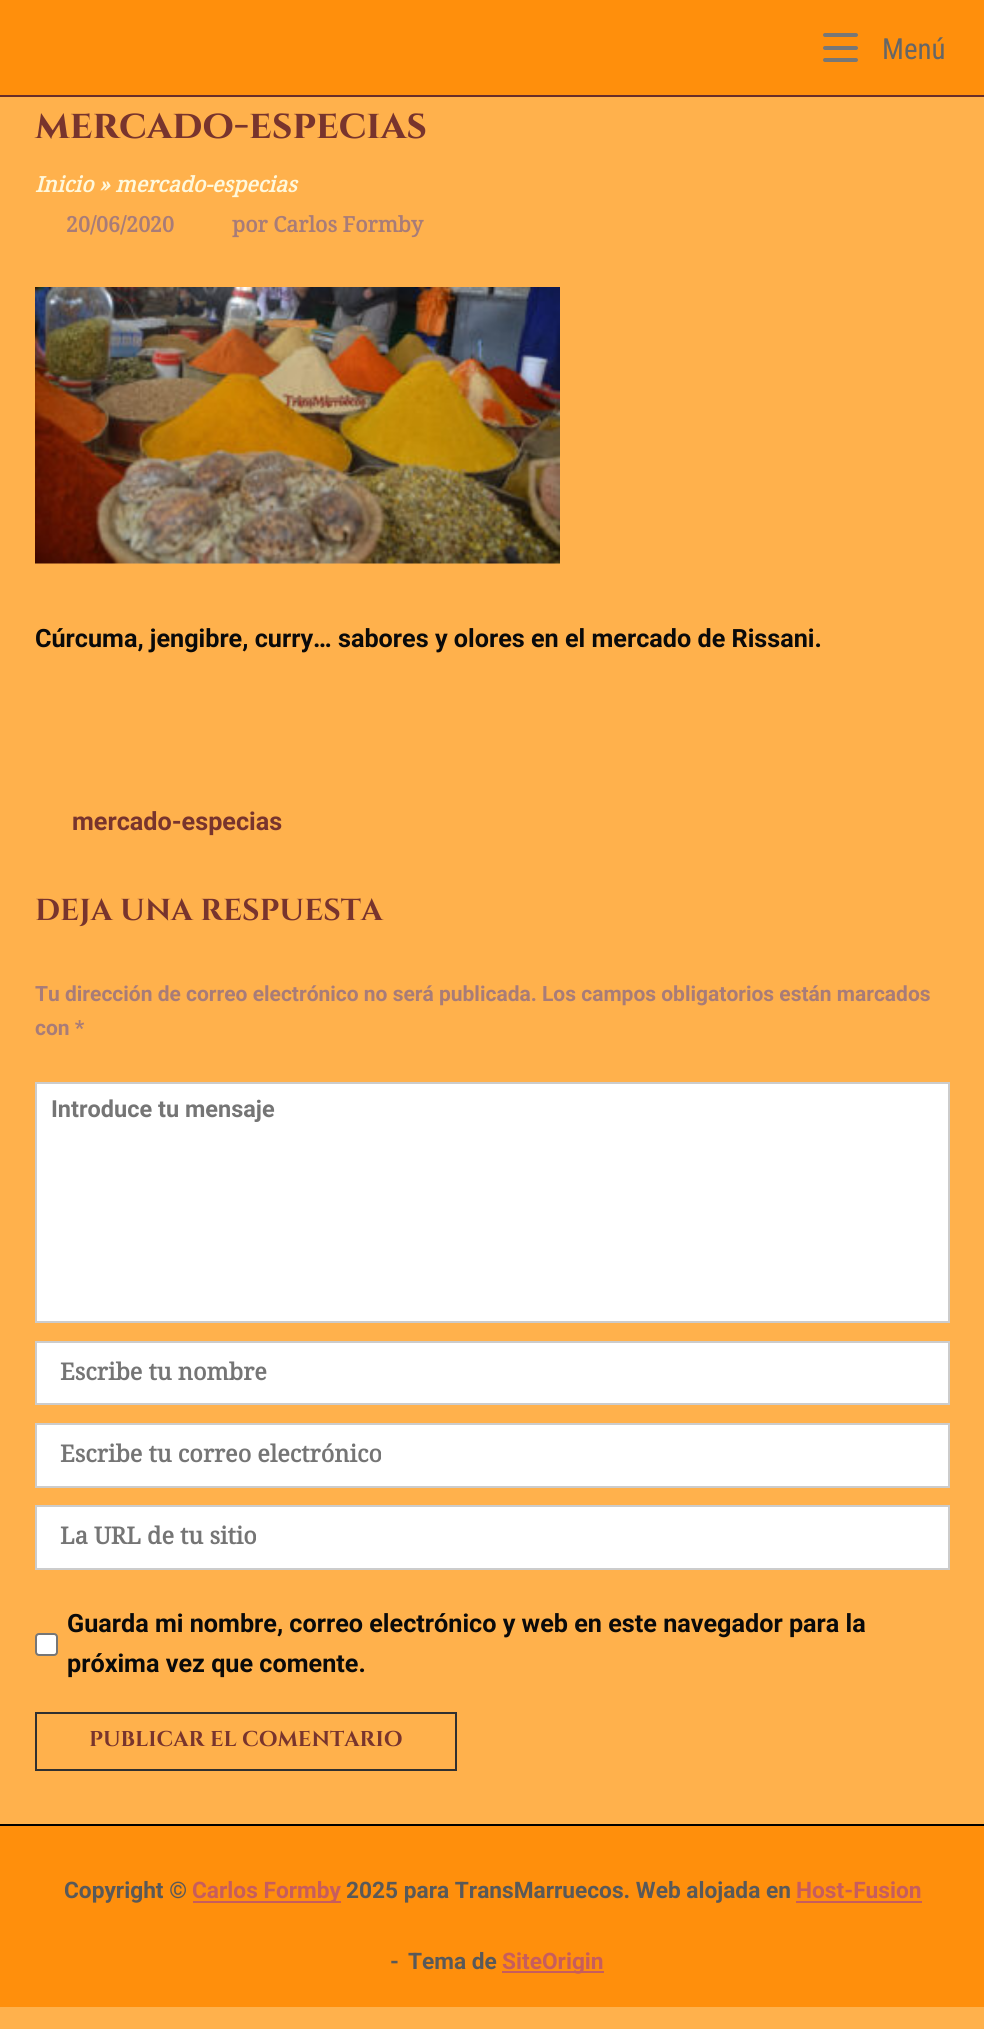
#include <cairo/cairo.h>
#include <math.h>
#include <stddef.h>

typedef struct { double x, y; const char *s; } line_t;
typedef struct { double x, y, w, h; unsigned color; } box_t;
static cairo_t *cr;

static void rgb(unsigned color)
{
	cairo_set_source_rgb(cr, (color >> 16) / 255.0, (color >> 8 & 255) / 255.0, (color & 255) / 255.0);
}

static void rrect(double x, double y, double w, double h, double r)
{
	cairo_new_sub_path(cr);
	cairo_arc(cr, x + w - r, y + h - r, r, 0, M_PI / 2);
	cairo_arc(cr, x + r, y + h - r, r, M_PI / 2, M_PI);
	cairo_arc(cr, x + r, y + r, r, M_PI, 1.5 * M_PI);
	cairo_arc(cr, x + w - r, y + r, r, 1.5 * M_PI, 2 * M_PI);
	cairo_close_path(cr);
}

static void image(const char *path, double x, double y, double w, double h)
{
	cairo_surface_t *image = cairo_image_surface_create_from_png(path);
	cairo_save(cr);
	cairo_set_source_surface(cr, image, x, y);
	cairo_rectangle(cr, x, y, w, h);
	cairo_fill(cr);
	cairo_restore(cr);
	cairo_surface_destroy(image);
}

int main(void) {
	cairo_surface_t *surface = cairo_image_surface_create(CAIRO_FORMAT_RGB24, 984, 2029);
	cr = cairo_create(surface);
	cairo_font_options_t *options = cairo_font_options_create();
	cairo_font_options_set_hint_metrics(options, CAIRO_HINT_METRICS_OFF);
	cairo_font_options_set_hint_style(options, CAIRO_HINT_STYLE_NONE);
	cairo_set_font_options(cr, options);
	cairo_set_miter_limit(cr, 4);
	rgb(0xffb14c);
	cairo_paint(cr);
	rgb(0xff8f0c);
	cairo_rectangle(cr, 0, 0, 984, 95);
	cairo_fill(cr);
	rgb(0x692d28);
	cairo_rectangle(cr, 0, 95, 984, 2);
	cairo_fill(cr);
	rgb(0x777777);
	rrect(823, 33, 35, 4, 2);
	cairo_fill(cr);
	rrect(823, 46, 35, 4, 2);
	cairo_fill(cr);
	rrect(823, 58, 35, 4, 2);
	cairo_fill(cr);
	image("img/1.png", 35, 287, 525, 277);
	rgb(0xffffff);
	cairo_rectangle(cr, 36, 1083, 913, 239);
	cairo_fill_preserve(cr);
	rgb(0xcccccc);
	cairo_stroke(cr);
	rgb(0xffffff);
	cairo_rectangle(cr, 36, 1342, 913, 62);
	cairo_fill_preserve(cr);
	rgb(0xcccccc);
	cairo_stroke(cr);
	rgb(0xffffff);
	cairo_rectangle(cr, 36, 1424, 913, 63);
	cairo_fill_preserve(cr);
	rgb(0xcccccc);
	cairo_stroke(cr);
	rgb(0xffffff);
	cairo_rectangle(cr, 36, 1506, 913, 63);
	cairo_fill_preserve(cr);
	rgb(0xcccccc);
	cairo_stroke(cr);
	rgb(0xffffff);
	rrect(36, 1634, 21, 21, 3);
	cairo_fill_preserve(cr);
	rgb(0x767676);
	cairo_stroke(cr);
	cairo_rectangle(cr, 36, 1713, 420, 57);
	rgb(0x303030);
	cairo_stroke(cr);
	{
		static const box_t items[] = {
			{0, 1826, 984, 181, 0xff8f0c},
			{0, 1824, 984, 2, 0x000000},
			{193, 1901, 148, 2, 0xc75d5d},
			{796, 1901, 126, 2, 0xc75d5d},
			{502, 1971, 102, 2, 0xc75d5d},
		};
		for (size_t i = 0; i < sizeof items / sizeof *items; i++) {
			rgb(items[i].color);
			cairo_rectangle(cr, items[i].x, items[i].y, items[i].w, items[i].h);
			cairo_fill(cr);
		}
	}
	cairo_select_font_face(cr, "Roboto Condensed", CAIRO_FONT_SLANT_NORMAL, CAIRO_FONT_WEIGHT_NORMAL);
	cairo_set_font_size(cr, 29);
	rgb(0x666666);
	cairo_move_to(cr, 882, 59);
	cairo_show_text(cr, "Menú");
	cairo_select_font_face(cr, "Cinzel", CAIRO_FONT_SLANT_NORMAL, CAIRO_FONT_WEIGHT_BOLD);
	cairo_set_font_size(cr, 40.25);
	rgb(0x78342d);
	cairo_move_to(cr, 35, 138);
	cairo_show_text(cr, "mercado-especias");
	cairo_select_font_face(cr, "Droid Serif", CAIRO_FONT_SLANT_ITALIC, CAIRO_FONT_WEIGHT_BOLD);
	cairo_set_font_size(cr, 21.4);
	rgb(0xfff8db);
	cairo_move_to(cr, 35, 192);
	cairo_show_text(cr, "Inicio » mercado-especias");
	cairo_select_font_face(cr, "Droid Serif", CAIRO_FONT_SLANT_NORMAL, CAIRO_FONT_WEIGHT_BOLD);
	rgb(0xa87c78);
	cairo_move_to(cr, 66, 232);
	cairo_show_text(cr, "20/06/2020");
	cairo_move_to(cr, 232, 232);
	cairo_show_text(cr, "por Carlos Formby");
	cairo_select_font_face(cr, "Roboto", CAIRO_FONT_SLANT_NORMAL, CAIRO_FONT_WEIGHT_BOLD);
	cairo_set_font_size(cr, 25.2);
	rgb(0x0a0a0a);
	cairo_move_to(cr, 35, 647);
	cairo_show_text(cr, "Cúrcuma, jengibre, curry… sabores y olores en el mercado de Rissani.");
	rgb(0x78342d);
	cairo_move_to(cr, 72, 830);
	cairo_show_text(cr, "mercado-especias");
	cairo_select_font_face(cr, "Cinzel", CAIRO_FONT_SLANT_NORMAL, CAIRO_FONT_WEIGHT_BOLD);
	cairo_set_font_size(cr, 30.25);
	cairo_move_to(cr, 35, 920);
	cairo_show_text(cr, "DEJA UNA RESPUESTA");
	cairo_select_font_face(cr, "Roboto", CAIRO_FONT_SLANT_NORMAL, CAIRO_FONT_WEIGHT_BOLD);
	cairo_set_font_size(cr, 21);
	rgb(0xa87c78);
	cairo_move_to(cr, 35, 1001);
	cairo_show_text(cr, "Tu dirección de correo electrónico no será publicada. Los campos obligatorios están marcados");
	cairo_move_to(cr, 35, 1035);
	cairo_show_text(cr, "con *");
	cairo_set_font_size(cr, 23.5);
	rgb(0x757575);
	cairo_move_to(cr, 51, 1117);
	cairo_show_text(cr, "Introduce tu mensaje");
	cairo_select_font_face(cr, "Droid Serif", CAIRO_FONT_SLANT_NORMAL, CAIRO_FONT_WEIGHT_BOLD);
	{
		static const line_t items[] = {
			{60, 1380, "Escribe tu nombre"},
			{60, 1462, "Escribe tu correo electrónico"},
			{60, 1544, "La URL de tu sitio"},
		};
		for (size_t i = 0; i < sizeof items / sizeof *items; i++) {
			cairo_move_to(cr, items[i].x, items[i].y);
			cairo_show_text(cr, items[i].s);
		}
	}
	cairo_select_font_face(cr, "Roboto", CAIRO_FONT_SLANT_NORMAL, CAIRO_FONT_WEIGHT_BOLD);
	cairo_set_font_size(cr, 25.2);
	rgb(0x0a0a0a);
	cairo_move_to(cr, 67, 1632);
	cairo_show_text(cr, "Guarda mi nombre, correo electrónico y web en este navegador para la");
	cairo_move_to(cr, 67, 1672);
	cairo_show_text(cr, "próxima vez que comente.");
	cairo_select_font_face(cr, "Cinzel", CAIRO_FONT_SLANT_NORMAL, CAIRO_FONT_WEIGHT_BOLD);
	cairo_set_font_size(cr, 21.4);
	rgb(0x78342d);
	cairo_move_to(cr, 89, 1746);
	cairo_show_text(cr, "PUBLICAR EL COMENTARIO");
	cairo_select_font_face(cr, "Roboto", CAIRO_FONT_SLANT_NORMAL, CAIRO_FONT_WEIGHT_BOLD);
	cairo_set_font_size(cr, 22.7);
	rgb(0x595959);
	cairo_move_to(cr, 64, 1898);
	cairo_show_text(cr, "Copyright ©");
	rgb(0xc75d5d);
	cairo_move_to(cr, 192, 1898);
	cairo_show_text(cr, "Carlos Formby");
	rgb(0x595959);
	cairo_move_to(cr, 346, 1898);
	cairo_show_text(cr, "2025 para TransMarruecos. Web alojada en");
	rgb(0xc75d5d);
	cairo_move_to(cr, 796, 1898);
	cairo_show_text(cr, "Host-Fusion");
	rgb(0x595959);
	cairo_move_to(cr, 390, 1969);
	cairo_show_text(cr, "-");
	cairo_move_to(cr, 408, 1969);
	cairo_show_text(cr, "Tema de");
	rgb(0xc75d5d);
	cairo_move_to(cr, 502, 1969);
	cairo_show_text(cr, "SiteOrigin");
	cairo_surface_write_to_png(surface, "page.png");
	cairo_font_options_destroy(options);
	cairo_destroy(cr);
	cairo_surface_destroy(surface);
	return 0;
}
